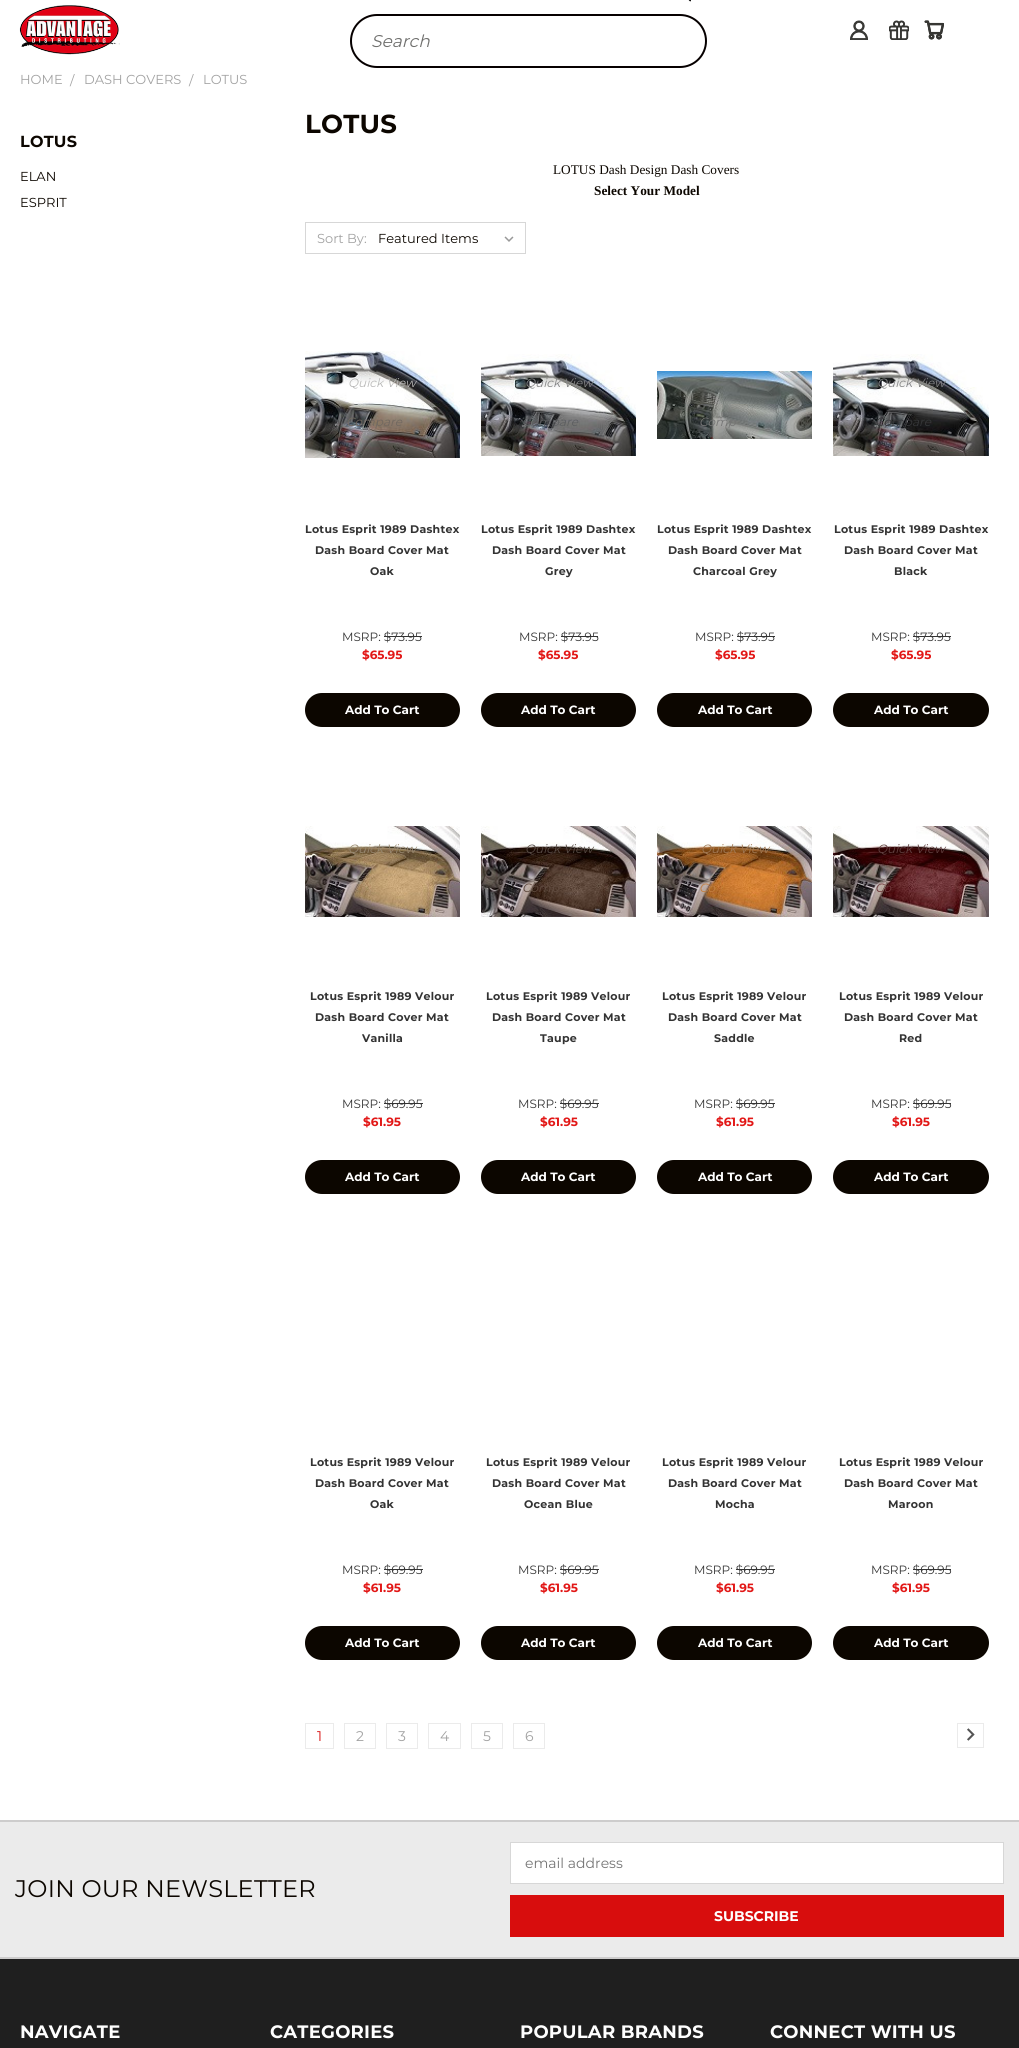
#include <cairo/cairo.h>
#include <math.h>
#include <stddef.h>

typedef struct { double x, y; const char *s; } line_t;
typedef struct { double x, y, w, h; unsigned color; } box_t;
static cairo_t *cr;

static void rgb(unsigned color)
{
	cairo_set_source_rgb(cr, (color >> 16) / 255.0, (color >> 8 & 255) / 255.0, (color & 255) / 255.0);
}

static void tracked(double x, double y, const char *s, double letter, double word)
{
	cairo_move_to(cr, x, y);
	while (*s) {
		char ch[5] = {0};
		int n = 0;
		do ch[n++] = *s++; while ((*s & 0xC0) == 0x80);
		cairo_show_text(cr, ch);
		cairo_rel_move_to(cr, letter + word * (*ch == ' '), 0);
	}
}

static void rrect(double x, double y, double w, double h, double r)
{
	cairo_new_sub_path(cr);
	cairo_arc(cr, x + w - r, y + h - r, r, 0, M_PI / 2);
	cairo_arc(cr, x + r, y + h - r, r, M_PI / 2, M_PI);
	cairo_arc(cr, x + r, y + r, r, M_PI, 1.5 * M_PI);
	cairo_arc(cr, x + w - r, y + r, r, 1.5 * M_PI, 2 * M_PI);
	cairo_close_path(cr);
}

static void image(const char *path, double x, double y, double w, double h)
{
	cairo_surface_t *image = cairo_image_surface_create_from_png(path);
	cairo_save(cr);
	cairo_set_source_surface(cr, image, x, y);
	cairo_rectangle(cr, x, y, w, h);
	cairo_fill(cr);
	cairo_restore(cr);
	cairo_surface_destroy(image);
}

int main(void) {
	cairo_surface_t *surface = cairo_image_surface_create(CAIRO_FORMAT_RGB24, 1019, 2048);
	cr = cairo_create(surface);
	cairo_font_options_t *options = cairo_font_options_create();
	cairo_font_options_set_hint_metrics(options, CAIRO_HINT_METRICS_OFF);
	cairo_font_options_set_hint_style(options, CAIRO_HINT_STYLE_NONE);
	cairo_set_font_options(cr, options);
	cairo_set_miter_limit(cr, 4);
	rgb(0xffffff);
	cairo_paint(cr);
	image("img/1.png", 19, 5, 101, 50);
	image("img/2.png", 688, 0, 3, 2);
	rrect(351, 15, 355, 52, 26);
	rgb(0x060000);
	cairo_stroke(cr);
	image("img/3.png", 850, 20, 18, 20);
	image("img/4.png", 889, 20, 20, 20);
	image("img/5.png", 924, 20, 20, 20);
	cairo_rectangle(cr, 305.5, 222.5, 220, 31);
	rgb(0xd7d7d7);
	cairo_set_line_width(cr, 1);
	cairo_stroke(cr);
	image("img/6.png", 504, 236, 10, 6);
	image("img/7.png", 305, 351, 155, 107);
	rgb(0x333333);
	cairo_rectangle(cr, 384, 636, 38, 1);
	cairo_fill(cr);
	rgb(0x0c0600);
	rrect(305, 693, 155, 34, 17);
	cairo_fill(cr);
	image("img/8.png", 481, 354, 155, 102);
	rgb(0x333333);
	cairo_rectangle(cr, 561, 636, 37, 1);
	cairo_fill(cr);
	rgb(0x0c0600);
	rrect(481, 693, 155, 34, 17);
	cairo_fill(cr);
	image("img/9.png", 657, 371, 155, 68);
	rgb(0x333333);
	cairo_rectangle(cr, 737, 636, 38, 1);
	cairo_fill(cr);
	rgb(0x0c0600);
	rrect(657, 693, 155, 34, 17);
	cairo_fill(cr);
	image("img/10.png", 833, 354, 156, 102);
	rgb(0x333333);
	cairo_rectangle(cr, 913, 636, 38, 1);
	cairo_fill(cr);
	rgb(0x0c0600);
	rrect(833, 693, 156, 34, 17);
	cairo_fill(cr);
	image("img/11.png", 305, 826, 155, 91);
	rgb(0x333333);
	cairo_rectangle(cr, 384, 1103, 39, 1);
	cairo_fill(cr);
	rgb(0x0c0600);
	rrect(305, 1160, 155, 34, 17);
	cairo_fill(cr);
	image("img/12.png", 481, 826, 155, 91);
	rgb(0x333333);
	cairo_rectangle(cr, 560, 1103, 39, 1);
	cairo_fill(cr);
	rgb(0x0c0600);
	rrect(481, 1160, 155, 34, 17);
	cairo_fill(cr);
	image("img/13.png", 657, 826, 155, 91);
	rgb(0x333333);
	cairo_rectangle(cr, 736, 1103, 39, 1);
	cairo_fill(cr);
	rgb(0x0c0600);
	rrect(657, 1160, 155, 34, 17);
	cairo_fill(cr);
	image("img/14.png", 833, 826, 156, 91);
	rgb(0x333333);
	cairo_rectangle(cr, 913, 1103, 38, 1);
	cairo_fill(cr);
	rgb(0x0c0600);
	rrect(833, 1160, 156, 34, 17);
	cairo_fill(cr);
	rgb(0x333333);
	cairo_rectangle(cr, 384, 1569, 39, 1);
	cairo_fill(cr);
	rgb(0x0c0600);
	rrect(305, 1626, 155, 34, 17);
	cairo_fill(cr);
	rgb(0x333333);
	cairo_rectangle(cr, 560, 1569, 39, 1);
	cairo_fill(cr);
	rgb(0x0c0600);
	rrect(481, 1626, 155, 34, 17);
	cairo_fill(cr);
	rgb(0x333333);
	cairo_rectangle(cr, 736, 1569, 39, 1);
	cairo_fill(cr);
	rgb(0x0c0600);
	rrect(657, 1626, 155, 34, 17);
	cairo_fill(cr);
	rgb(0x333333);
	cairo_rectangle(cr, 913, 1569, 38, 1);
	cairo_fill(cr);
	rgb(0x0c0600);
	rrect(833, 1626, 156, 34, 17);
	cairo_fill(cr);
	cairo_rectangle(cr, 305.5, 1723.5, 28, 25);
	rgb(0xebebeb);
	cairo_stroke(cr);
	cairo_rectangle(cr, 344.5, 1723.5, 31, 25);
	cairo_stroke(cr);
	cairo_rectangle(cr, 386.5, 1723.5, 31, 25);
	cairo_stroke(cr);
	cairo_rectangle(cr, 428.5, 1723.5, 32, 25);
	cairo_stroke(cr);
	cairo_rectangle(cr, 471.5, 1723.5, 31, 25);
	cairo_stroke(cr);
	cairo_rectangle(cr, 513.5, 1723.5, 31, 25);
	cairo_stroke(cr);
	cairo_rectangle(cr, 957.5, 1723.5, 26, 24);
	cairo_stroke(cr);
	image("img/15.png", 967, 1728, 8, 13);
	cairo_rectangle(cr, 0, 1822, 1019, 135);
	cairo_fill(cr);
	rgb(0xcdcccc);
	cairo_rectangle(cr, 0, 1820, 1019, 2);
	cairo_fill(cr);
	rgb(0xffffff);
	cairo_rectangle(cr, 510.5, 1842.5, 493, 41);
	cairo_fill_preserve(cr);
	rgb(0xd7d7d7);
	cairo_stroke(cr);
	{
		static const box_t items[] = {
			{510, 1895, 494, 42, 0xd80d0d},
			{0, 1959, 1019, 89, 0x1f1f1f},
			{0, 1957, 1019, 2, 0xcdcccc},
		};
		for (size_t i = 0; i < sizeof items / sizeof *items; i++) {
			rgb(items[i].color);
			cairo_rectangle(cr, items[i].x, items[i].y, items[i].w, items[i].h);
			cairo_fill(cr);
		}
	}
	cairo_select_font_face(cr, "Montserrat", CAIRO_FONT_SLANT_ITALIC, CAIRO_FONT_WEIGHT_NORMAL);
	cairo_set_font_size(cr, 17);
	rgb(0x70706e);
	cairo_move_to(cr, 371, 47);
	cairo_show_text(cr, "Search");
	cairo_select_font_face(cr, "Montserrat", CAIRO_FONT_SLANT_NORMAL, CAIRO_FONT_WEIGHT_NORMAL);
	cairo_set_font_size(cr, 13);
	rgb(0xa2a2a2);
	{
		static const line_t items[] = {
			{20, 84, "HOME"},
			{70, 85, "/"},
			{84, 84, "DASH COVERS"},
			{189, 85, "/"},
			{203, 84, "LOTUS"},
		};
		for (size_t i = 0; i < sizeof items / sizeof *items; i++) {
			cairo_move_to(cr, items[i].x, items[i].y);
			cairo_show_text(cr, items[i].s);
		}
	}
	cairo_select_font_face(cr, "Montserrat", CAIRO_FONT_SLANT_NORMAL, CAIRO_FONT_WEIGHT_BOLD);
	cairo_set_font_size(cr, 16);
	rgb(0x0c0600);
	tracked(20, 147, "LOTUS", 0.25, 0);
	cairo_select_font_face(cr, "Montserrat", CAIRO_FONT_SLANT_NORMAL, CAIRO_FONT_WEIGHT_NORMAL);
	cairo_set_font_size(cr, 13);
	cairo_move_to(cr, 20, 181);
	cairo_show_text(cr, "ELAN");
	cairo_move_to(cr, 20, 207);
	cairo_show_text(cr, "ESPRIT");
	cairo_select_font_face(cr, "Montserrat", CAIRO_FONT_SLANT_NORMAL, CAIRO_FONT_WEIGHT_BOLD);
	cairo_set_font_size(cr, 26);
	tracked(305, 133, "LOTUS", 0.25, 0);
	cairo_select_font_face(cr, "Liberation Serif", CAIRO_FONT_SLANT_NORMAL, CAIRO_FONT_WEIGHT_NORMAL);
	cairo_set_font_size(cr, 13.3);
	cairo_move_to(cr, 553, 174);
	cairo_show_text(cr, "LOTUS Dash Design Dash Covers");
	cairo_select_font_face(cr, "Liberation Serif", CAIRO_FONT_SLANT_NORMAL, CAIRO_FONT_WEIGHT_BOLD);
	cairo_move_to(cr, 594, 195);
	cairo_show_text(cr, "Select Your Model");
	cairo_select_font_face(cr, "Montserrat", CAIRO_FONT_SLANT_NORMAL, CAIRO_FONT_WEIGHT_NORMAL);
	cairo_set_font_size(cr, 13);
	rgb(0xa2a2a2);
	cairo_move_to(cr, 317, 243);
	cairo_show_text(cr, "Sort By:");
	rgb(0x0c0600);
	cairo_move_to(cr, 378, 243);
	cairo_show_text(cr, "Featured Items");
	cairo_select_font_face(cr, "Montserrat", CAIRO_FONT_SLANT_ITALIC, CAIRO_FONT_WEIGHT_NORMAL);
	cairo_set_font_size(cr, 12);
	rgb(0xbabab9);
	cairo_move_to(cr, 348, 387);
	cairo_show_text(cr, "Quick View");
	rgb(0x716860);
	cairo_move_to(cr, 346, 426);
	cairo_show_text(cr, "Compare");
	cairo_select_font_face(cr, "Montserrat", CAIRO_FONT_SLANT_NORMAL, CAIRO_FONT_WEIGHT_BOLD);
	cairo_set_font_size(cr, 11);
	rgb(0x333333);
	{
		static const line_t items[] = {
			{305, 533, "Lotus Esprit 1989 Dashtex"},
			{315, 554, "Dash Board Cover Mat"},
			{370, 575, "Oak"},
		};
		for (size_t i = 0; i < sizeof items / sizeof *items; i++) {
			tracked(items[i].x, items[i].y, items[i].s, 0.25, 0);
		}
	}
	cairo_select_font_face(cr, "Montserrat", CAIRO_FONT_SLANT_NORMAL, CAIRO_FONT_WEIGHT_NORMAL);
	cairo_set_font_size(cr, 12);
	cairo_move_to(cr, 342, 641);
	cairo_show_text(cr, "MSRP: $73.95");
	cairo_select_font_face(cr, "Montserrat", CAIRO_FONT_SLANT_NORMAL, CAIRO_FONT_WEIGHT_BOLD);
	rgb(0xe21716);
	cairo_move_to(cr, 362, 659);
	cairo_show_text(cr, "$65.95");
	rgb(0xffffff);
	cairo_move_to(cr, 345, 714);
	cairo_show_text(cr, "Add To Cart");
	cairo_select_font_face(cr, "Montserrat", CAIRO_FONT_SLANT_ITALIC, CAIRO_FONT_WEIGHT_NORMAL);
	rgb(0x858687);
	cairo_move_to(cr, 525, 387);
	cairo_show_text(cr, "Quick View");
	rgb(0x5d5f61);
	cairo_move_to(cr, 522, 426);
	cairo_show_text(cr, "Compare");
	cairo_select_font_face(cr, "Montserrat", CAIRO_FONT_SLANT_NORMAL, CAIRO_FONT_WEIGHT_BOLD);
	cairo_set_font_size(cr, 11);
	rgb(0x333333);
	{
		static const line_t items[] = {
			{481, 533, "Lotus Esprit 1989 Dashtex"},
			{492, 554, "Dash Board Cover Mat"},
			{545, 575, "Grey"},
		};
		for (size_t i = 0; i < sizeof items / sizeof *items; i++) {
			tracked(items[i].x, items[i].y, items[i].s, 0.25, 0);
		}
	}
	cairo_select_font_face(cr, "Montserrat", CAIRO_FONT_SLANT_NORMAL, CAIRO_FONT_WEIGHT_NORMAL);
	cairo_set_font_size(cr, 12);
	cairo_move_to(cr, 519, 641);
	cairo_show_text(cr, "MSRP: $73.95");
	cairo_select_font_face(cr, "Montserrat", CAIRO_FONT_SLANT_NORMAL, CAIRO_FONT_WEIGHT_BOLD);
	rgb(0xe21716);
	cairo_move_to(cr, 538, 659);
	cairo_show_text(cr, "$65.95");
	rgb(0xffffff);
	cairo_move_to(cr, 521, 714);
	cairo_show_text(cr, "Add To Cart");
	cairo_select_font_face(cr, "Montserrat", CAIRO_FONT_SLANT_ITALIC, CAIRO_FONT_WEIGHT_NORMAL);
	rgb(0x757575);
	cairo_move_to(cr, 699, 426);
	cairo_show_text(cr, "Comp");
	cairo_select_font_face(cr, "Montserrat", CAIRO_FONT_SLANT_NORMAL, CAIRO_FONT_WEIGHT_BOLD);
	cairo_set_font_size(cr, 11);
	rgb(0x333333);
	{
		static const line_t items[] = {
			{657, 533, "Lotus Esprit 1989 Dashtex"},
			{668, 554, "Dash Board Cover Mat"},
			{693, 575, "Charcoal Grey"},
		};
		for (size_t i = 0; i < sizeof items / sizeof *items; i++) {
			tracked(items[i].x, items[i].y, items[i].s, 0.25, 0);
		}
	}
	cairo_select_font_face(cr, "Montserrat", CAIRO_FONT_SLANT_NORMAL, CAIRO_FONT_WEIGHT_NORMAL);
	cairo_set_font_size(cr, 12);
	cairo_move_to(cr, 695, 641);
	cairo_show_text(cr, "MSRP: $73.95");
	cairo_select_font_face(cr, "Montserrat", CAIRO_FONT_SLANT_NORMAL, CAIRO_FONT_WEIGHT_BOLD);
	rgb(0xe21716);
	cairo_move_to(cr, 715, 659);
	cairo_show_text(cr, "$65.95");
	rgb(0xffffff);
	cairo_move_to(cr, 698, 714);
	cairo_show_text(cr, "Add To Cart");
	cairo_select_font_face(cr, "Montserrat", CAIRO_FONT_SLANT_ITALIC, CAIRO_FONT_WEIGHT_NORMAL);
	rgb(0x858687);
	cairo_move_to(cr, 877, 387);
	cairo_show_text(cr, "Quick View");
	rgb(0x363739);
	cairo_move_to(cr, 875, 426);
	cairo_show_text(cr, "Compare");
	cairo_select_font_face(cr, "Montserrat", CAIRO_FONT_SLANT_NORMAL, CAIRO_FONT_WEIGHT_BOLD);
	cairo_set_font_size(cr, 11);
	rgb(0x333333);
	{
		static const line_t items[] = {
			{834, 533, "Lotus Esprit 1989 Dashtex"},
			{844, 554, "Dash Board Cover Mat"},
			{894, 575, "Black"},
		};
		for (size_t i = 0; i < sizeof items / sizeof *items; i++) {
			tracked(items[i].x, items[i].y, items[i].s, 0.25, 0);
		}
	}
	cairo_select_font_face(cr, "Montserrat", CAIRO_FONT_SLANT_NORMAL, CAIRO_FONT_WEIGHT_NORMAL);
	cairo_set_font_size(cr, 12);
	cairo_move_to(cr, 871, 641);
	cairo_show_text(cr, "MSRP: $73.95");
	cairo_select_font_face(cr, "Montserrat", CAIRO_FONT_SLANT_NORMAL, CAIRO_FONT_WEIGHT_BOLD);
	rgb(0xe21716);
	cairo_move_to(cr, 891, 659);
	cairo_show_text(cr, "$65.95");
	rgb(0xffffff);
	cairo_move_to(cr, 874, 714);
	cairo_show_text(cr, "Add To Cart");
	cairo_select_font_face(cr, "Montserrat", CAIRO_FONT_SLANT_ITALIC, CAIRO_FONT_WEIGHT_NORMAL);
	rgb(0x97876f);
	cairo_move_to(cr, 348, 853);
	cairo_show_text(cr, "Quick View");
	cairo_select_font_face(cr, "Montserrat", CAIRO_FONT_SLANT_NORMAL, CAIRO_FONT_WEIGHT_BOLD);
	cairo_set_font_size(cr, 11);
	rgb(0x333333);
	{
		static const line_t items[] = {
			{310, 1000, "Lotus Esprit 1989 Velour"},
			{315, 1021, "Dash Board Cover Mat"},
			{362, 1042, "Vanilla"},
		};
		for (size_t i = 0; i < sizeof items / sizeof *items; i++) {
			tracked(items[i].x, items[i].y, items[i].s, 0.25, 0);
		}
	}
	cairo_select_font_face(cr, "Montserrat", CAIRO_FONT_SLANT_NORMAL, CAIRO_FONT_WEIGHT_NORMAL);
	cairo_set_font_size(cr, 12);
	cairo_move_to(cr, 342, 1108);
	cairo_show_text(cr, "MSRP: $69.95");
	cairo_select_font_face(cr, "Montserrat", CAIRO_FONT_SLANT_NORMAL, CAIRO_FONT_WEIGHT_BOLD);
	rgb(0xe21716);
	cairo_move_to(cr, 363, 1126);
	cairo_show_text(cr, "$61.95");
	rgb(0xffffff);
	cairo_move_to(cr, 345, 1181);
	cairo_show_text(cr, "Add To Cart");
	cairo_select_font_face(cr, "Montserrat", CAIRO_FONT_SLANT_ITALIC, CAIRO_FONT_WEIGHT_NORMAL);
	rgb(0x564a44);
	cairo_move_to(cr, 525, 853);
	cairo_show_text(cr, "Quick View");
	rgb(0x604b3f);
	cairo_move_to(cr, 522, 892);
	cairo_show_text(cr, "Comp");
	cairo_select_font_face(cr, "Montserrat", CAIRO_FONT_SLANT_NORMAL, CAIRO_FONT_WEIGHT_BOLD);
	cairo_set_font_size(cr, 11);
	rgb(0x333333);
	{
		static const line_t items[] = {
			{486, 1000, "Lotus Esprit 1989 Velour"},
			{492, 1021, "Dash Board Cover Mat"},
			{540, 1042, "Taupe"},
		};
		for (size_t i = 0; i < sizeof items / sizeof *items; i++) {
			tracked(items[i].x, items[i].y, items[i].s, 0.25, 0);
		}
	}
	cairo_select_font_face(cr, "Montserrat", CAIRO_FONT_SLANT_NORMAL, CAIRO_FONT_WEIGHT_NORMAL);
	cairo_set_font_size(cr, 12);
	cairo_move_to(cr, 518, 1108);
	cairo_show_text(cr, "MSRP: $69.95");
	cairo_select_font_face(cr, "Montserrat", CAIRO_FONT_SLANT_NORMAL, CAIRO_FONT_WEIGHT_BOLD);
	rgb(0xe21716);
	cairo_move_to(cr, 540, 1126);
	cairo_show_text(cr, "$61.95");
	rgb(0xffffff);
	cairo_move_to(cr, 521, 1181);
	cairo_show_text(cr, "Add To Cart");
	cairo_select_font_face(cr, "Montserrat", CAIRO_FONT_SLANT_ITALIC, CAIRO_FONT_WEIGHT_NORMAL);
	rgb(0xa07853);
	cairo_move_to(cr, 701, 853);
	cairo_show_text(cr, "Quick View");
	rgb(0xc47f41);
	cairo_move_to(cr, 699, 892);
	cairo_show_text(cr, "Co");
	cairo_select_font_face(cr, "Montserrat", CAIRO_FONT_SLANT_NORMAL, CAIRO_FONT_WEIGHT_BOLD);
	cairo_set_font_size(cr, 11);
	rgb(0x333333);
	{
		static const line_t items[] = {
			{662, 1000, "Lotus Esprit 1989 Velour"},
			{668, 1021, "Dash Board Cover Mat"},
			{714, 1042, "Saddle"},
		};
		for (size_t i = 0; i < sizeof items / sizeof *items; i++) {
			tracked(items[i].x, items[i].y, items[i].s, 0.25, 0);
		}
	}
	cairo_select_font_face(cr, "Montserrat", CAIRO_FONT_SLANT_NORMAL, CAIRO_FONT_WEIGHT_NORMAL);
	cairo_set_font_size(cr, 12);
	cairo_move_to(cr, 694, 1108);
	cairo_show_text(cr, "MSRP: $69.95");
	cairo_select_font_face(cr, "Montserrat", CAIRO_FONT_SLANT_NORMAL, CAIRO_FONT_WEIGHT_BOLD);
	rgb(0xe21716);
	cairo_move_to(cr, 716, 1126);
	cairo_show_text(cr, "$61.95");
	rgb(0xffffff);
	cairo_move_to(cr, 698, 1181);
	cairo_show_text(cr, "Add To Cart");
	cairo_select_font_face(cr, "Montserrat", CAIRO_FONT_SLANT_ITALIC, CAIRO_FONT_WEIGHT_NORMAL);
	rgb(0x603f3f);
	cairo_move_to(cr, 877, 853);
	cairo_show_text(cr, "Quick View");
	rgb(0x703b3d);
	cairo_move_to(cr, 875, 892);
	cairo_show_text(cr, "Co");
	cairo_select_font_face(cr, "Montserrat", CAIRO_FONT_SLANT_NORMAL, CAIRO_FONT_WEIGHT_BOLD);
	cairo_set_font_size(cr, 11);
	rgb(0x333333);
	{
		static const line_t items[] = {
			{839, 1000, "Lotus Esprit 1989 Velour"},
			{844, 1021, "Dash Board Cover Mat"},
			{899, 1042, "Red"},
		};
		for (size_t i = 0; i < sizeof items / sizeof *items; i++) {
			tracked(items[i].x, items[i].y, items[i].s, 0.25, 0);
		}
	}
	cairo_select_font_face(cr, "Montserrat", CAIRO_FONT_SLANT_NORMAL, CAIRO_FONT_WEIGHT_NORMAL);
	cairo_set_font_size(cr, 12);
	cairo_move_to(cr, 871, 1108);
	cairo_show_text(cr, "MSRP: $69.95");
	cairo_select_font_face(cr, "Montserrat", CAIRO_FONT_SLANT_NORMAL, CAIRO_FONT_WEIGHT_BOLD);
	rgb(0xe21716);
	cairo_move_to(cr, 892, 1126);
	cairo_show_text(cr, "$61.95");
	rgb(0xffffff);
	cairo_move_to(cr, 874, 1181);
	cairo_show_text(cr, "Add To Cart");
	cairo_set_font_size(cr, 11);
	rgb(0x333333);
	{
		static const line_t items[] = {
			{310, 1466, "Lotus Esprit 1989 Velour"},
			{315, 1487, "Dash Board Cover Mat"},
			{370, 1508, "Oak"},
		};
		for (size_t i = 0; i < sizeof items / sizeof *items; i++) {
			tracked(items[i].x, items[i].y, items[i].s, 0.25, 0);
		}
	}
	cairo_select_font_face(cr, "Montserrat", CAIRO_FONT_SLANT_NORMAL, CAIRO_FONT_WEIGHT_NORMAL);
	cairo_set_font_size(cr, 12);
	cairo_move_to(cr, 342, 1574);
	cairo_show_text(cr, "MSRP: $69.95");
	cairo_select_font_face(cr, "Montserrat", CAIRO_FONT_SLANT_NORMAL, CAIRO_FONT_WEIGHT_BOLD);
	rgb(0xe21716);
	cairo_move_to(cr, 363, 1592);
	cairo_show_text(cr, "$61.95");
	rgb(0xffffff);
	cairo_move_to(cr, 345, 1647);
	cairo_show_text(cr, "Add To Cart");
	cairo_set_font_size(cr, 11);
	rgb(0x333333);
	{
		static const line_t items[] = {
			{486, 1466, "Lotus Esprit 1989 Velour"},
			{492, 1487, "Dash Board Cover Mat"},
			{524, 1508, "Ocean Blue"},
		};
		for (size_t i = 0; i < sizeof items / sizeof *items; i++) {
			tracked(items[i].x, items[i].y, items[i].s, 0.25, 0);
		}
	}
	cairo_select_font_face(cr, "Montserrat", CAIRO_FONT_SLANT_NORMAL, CAIRO_FONT_WEIGHT_NORMAL);
	cairo_set_font_size(cr, 12);
	cairo_move_to(cr, 518, 1574);
	cairo_show_text(cr, "MSRP: $69.95");
	cairo_select_font_face(cr, "Montserrat", CAIRO_FONT_SLANT_NORMAL, CAIRO_FONT_WEIGHT_BOLD);
	rgb(0xe21716);
	cairo_move_to(cr, 540, 1592);
	cairo_show_text(cr, "$61.95");
	rgb(0xffffff);
	cairo_move_to(cr, 521, 1647);
	cairo_show_text(cr, "Add To Cart");
	cairo_set_font_size(cr, 11);
	rgb(0x333333);
	{
		static const line_t items[] = {
			{662, 1466, "Lotus Esprit 1989 Velour"},
			{668, 1487, "Dash Board Cover Mat"},
			{715, 1508, "Mocha"},
		};
		for (size_t i = 0; i < sizeof items / sizeof *items; i++) {
			tracked(items[i].x, items[i].y, items[i].s, 0.25, 0);
		}
	}
	cairo_select_font_face(cr, "Montserrat", CAIRO_FONT_SLANT_NORMAL, CAIRO_FONT_WEIGHT_NORMAL);
	cairo_set_font_size(cr, 12);
	cairo_move_to(cr, 694, 1574);
	cairo_show_text(cr, "MSRP: $69.95");
	cairo_select_font_face(cr, "Montserrat", CAIRO_FONT_SLANT_NORMAL, CAIRO_FONT_WEIGHT_BOLD);
	rgb(0xe21716);
	cairo_move_to(cr, 716, 1592);
	cairo_show_text(cr, "$61.95");
	rgb(0xffffff);
	cairo_move_to(cr, 698, 1647);
	cairo_show_text(cr, "Add To Cart");
	cairo_set_font_size(cr, 11);
	rgb(0x333333);
	{
		static const line_t items[] = {
			{839, 1466, "Lotus Esprit 1989 Velour"},
			{844, 1487, "Dash Board Cover Mat"},
			{888, 1508, "Maroon"},
		};
		for (size_t i = 0; i < sizeof items / sizeof *items; i++) {
			tracked(items[i].x, items[i].y, items[i].s, 0.25, 0);
		}
	}
	cairo_select_font_face(cr, "Montserrat", CAIRO_FONT_SLANT_NORMAL, CAIRO_FONT_WEIGHT_NORMAL);
	cairo_set_font_size(cr, 12);
	cairo_move_to(cr, 871, 1574);
	cairo_show_text(cr, "MSRP: $69.95");
	cairo_select_font_face(cr, "Montserrat", CAIRO_FONT_SLANT_NORMAL, CAIRO_FONT_WEIGHT_BOLD);
	rgb(0xe21716);
	cairo_move_to(cr, 892, 1592);
	cairo_show_text(cr, "$61.95");
	rgb(0xffffff);
	cairo_move_to(cr, 874, 1647);
	cairo_show_text(cr, "Add To Cart");
	cairo_select_font_face(cr, "Montserrat", CAIRO_FONT_SLANT_NORMAL, CAIRO_FONT_WEIGHT_NORMAL);
	cairo_set_font_size(cr, 14);
	rgb(0xd80d0d);
	cairo_move_to(cr, 317, 1741);
	cairo_show_text(cr, "1");
	rgb(0xa2a2a2);
	{
		static const line_t items[] = {
			{356, 1741, "2"},
			{398, 1741, "3"},
			{440, 1741, "4"},
			{483, 1741, "5"},
			{525, 1741, "6"},
		};
		for (size_t i = 0; i < sizeof items / sizeof *items; i++) {
			cairo_move_to(cr, items[i].x, items[i].y);
			cairo_show_text(cr, items[i].s);
		}
	}
	cairo_set_font_size(cr, 24);
	rgb(0x0c0600);
	tracked(15, 1897, "JOIN OUR NEWSLETTER", 0.25, 0);
	cairo_set_font_size(cr, 14);
	rgb(0x757575);
	cairo_move_to(cr, 525, 1868);
	cairo_show_text(cr, "email address");
	cairo_select_font_face(cr, "Montserrat", CAIRO_FONT_SLANT_NORMAL, CAIRO_FONT_WEIGHT_BOLD);
	rgb(0xffffff);
	cairo_move_to(cr, 714, 1921);
	cairo_show_text(cr, "SUBSCRIBE");
	cairo_set_font_size(cr, 18);
	{
		static const line_t items[] = {
			{20, 2038, "NAVIGATE"},
			{270, 2038, "CATEGORIES"},
			{520, 2038, "POPULAR BRANDS"},
			{770, 2038, "CONNECT WITH US"},
		};
		for (size_t i = 0; i < sizeof items / sizeof *items; i++) {
			tracked(items[i].x, items[i].y, items[i].s, 0.25, 0);
		}
	}
	cairo_surface_write_to_png(surface, "page.png");
	cairo_font_options_destroy(options);
	cairo_destroy(cr);
	cairo_surface_destroy(surface);
	return 0;
}
